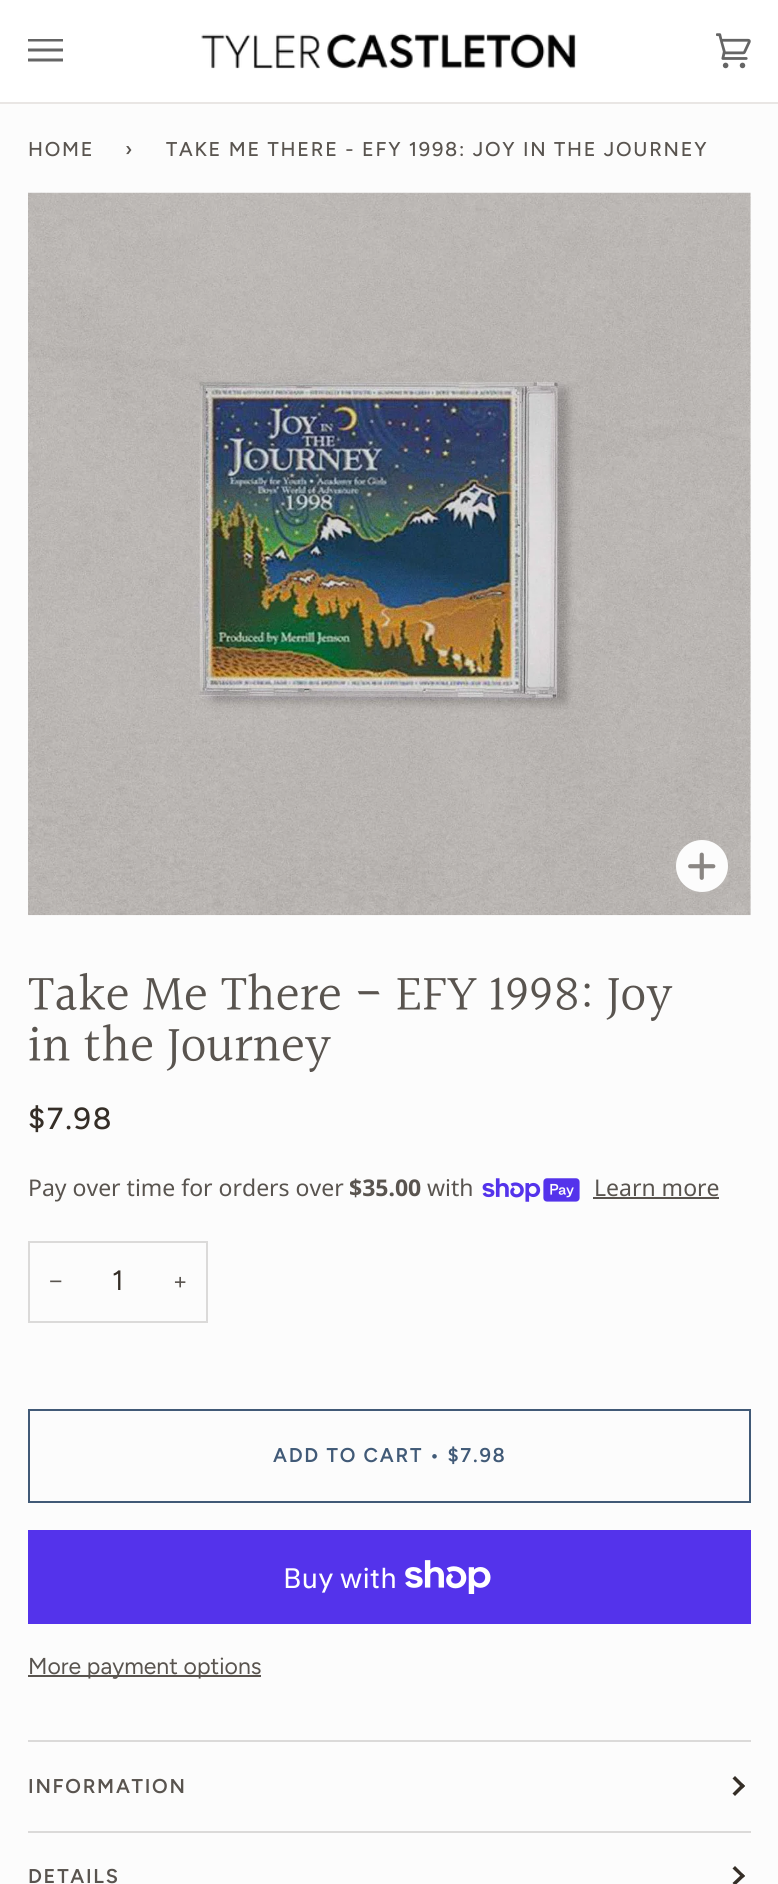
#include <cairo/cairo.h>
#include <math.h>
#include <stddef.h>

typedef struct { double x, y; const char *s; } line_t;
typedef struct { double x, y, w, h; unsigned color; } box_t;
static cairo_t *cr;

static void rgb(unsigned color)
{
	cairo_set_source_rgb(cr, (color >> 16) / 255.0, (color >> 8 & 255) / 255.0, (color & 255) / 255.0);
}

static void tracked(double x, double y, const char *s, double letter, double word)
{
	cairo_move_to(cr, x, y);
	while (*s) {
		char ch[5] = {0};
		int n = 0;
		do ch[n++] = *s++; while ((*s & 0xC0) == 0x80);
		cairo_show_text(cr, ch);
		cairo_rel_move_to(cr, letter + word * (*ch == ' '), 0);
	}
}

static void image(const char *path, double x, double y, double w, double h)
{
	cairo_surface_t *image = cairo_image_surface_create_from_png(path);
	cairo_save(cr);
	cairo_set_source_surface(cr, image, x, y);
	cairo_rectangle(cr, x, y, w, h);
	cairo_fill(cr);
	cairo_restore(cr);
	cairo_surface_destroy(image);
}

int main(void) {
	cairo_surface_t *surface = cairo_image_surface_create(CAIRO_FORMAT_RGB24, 778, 1884);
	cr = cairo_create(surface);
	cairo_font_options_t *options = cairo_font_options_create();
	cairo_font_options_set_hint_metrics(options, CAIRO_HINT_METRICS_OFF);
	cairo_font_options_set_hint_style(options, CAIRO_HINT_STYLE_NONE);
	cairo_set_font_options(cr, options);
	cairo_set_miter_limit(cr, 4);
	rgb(0xfcfcfc);
	cairo_paint(cr);
	rgb(0xffffff);
	cairo_rectangle(cr, 0, 0, 778, 102);
	cairo_fill(cr);
	rgb(0xe9e6e4);
	cairo_rectangle(cr, 0, 102, 778, 2);
	cairo_fill(cr);
	rgb(0x656565);
	cairo_new_path(cr);
	cairo_move_to(cr, 28, 39);
	cairo_line_to(cr, 63, 39);
	cairo_line_to(cr, 63, 41.5);
	cairo_line_to(cr, 28, 41.5);
	cairo_close_path(cr);
	cairo_move_to(cr, 28, 48.5);
	cairo_line_to(cr, 63, 48.5);
	cairo_line_to(cr, 63, 51.5);
	cairo_line_to(cr, 28, 51.5);
	cairo_close_path(cr);
	cairo_move_to(cr, 28, 58.5);
	cairo_line_to(cr, 63, 58.5);
	cairo_line_to(cr, 63, 61.5);
	cairo_line_to(cr, 28, 61.5);
	cairo_close_path(cr);
	cairo_fill(cr);
	image("img/1.png", 201, 33, 375, 36);
	image("img/2.png", 716, 33, 35, 36);
	image("img/3.png", 28, 192, 723, 724);
	image("img/4.png", 676, 840, 52, 52);
	image("img/5.png", 482, 1178, 98, 24);
	rgb(0x59544f);
	cairo_rectangle(cr, 593, 1197, 126, 2);
	cairo_fill(cr);
	cairo_rectangle(cr, 29, 1242, 178, 80);
	rgb(0xdbdad9);
	cairo_stroke(cr);
	cairo_rectangle(cr, 29, 1410, 721, 92);
	rgb(0x415a77);
	cairo_stroke(cr);
	rgb(0x5433eb);
	cairo_rectangle(cr, 28, 1530, 723, 94);
	cairo_fill(cr);
	image("img/6.png", 405, 1560, 86, 34);
	{
		static const box_t items[] = {
			{28, 1675, 233, 2, 0x59544f},
			{28, 1740, 723, 2, 0xdbdad9},
			{28, 1831, 723, 2, 0xdbdad9},
		};
		for (size_t i = 0; i < sizeof items / sizeof *items; i++) {
			rgb(items[i].color);
			cairo_rectangle(cr, items[i].x, items[i].y, items[i].w, items[i].h);
			cairo_fill(cr);
		}
	}
	rgb(0x352e27);
	cairo_new_path(cr);
	cairo_move_to(cr, 742.5, 1788.5);
	cairo_line_to(cr, 732.5, 1778.5);
	cairo_line_to(cr, 735, 1776);
	cairo_line_to(cr, 745, 1786);
	cairo_close_path(cr);
	cairo_fill(cr);
	cairo_new_path(cr);
	cairo_move_to(cr, 735, 1796);
	cairo_line_to(cr, 732.5, 1793.5);
	cairo_line_to(cr, 742.5, 1783.5);
	cairo_line_to(cr, 745, 1786);
	cairo_close_path(cr);
	cairo_fill(cr);
	cairo_new_path(cr);
	cairo_move_to(cr, 742.5, 1878);
	cairo_line_to(cr, 732.5, 1868.5);
	cairo_line_to(cr, 735, 1866);
	cairo_line_to(cr, 745, 1876);
	cairo_close_path(cr);
	cairo_fill(cr);
	cairo_new_path(cr);
	cairo_move_to(cr, 735, 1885.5);
	cairo_line_to(cr, 732.5, 1883);
	cairo_line_to(cr, 742.5, 1873.5);
	cairo_line_to(cr, 745, 1876);
	cairo_close_path(cr);
	cairo_fill(cr);
	cairo_select_font_face(cr, "Figtree Medium", CAIRO_FONT_SLANT_NORMAL, CAIRO_FONT_WEIGHT_NORMAL);
	cairo_set_font_size(cr, 19.95);
	rgb(0x59544f);
	{
		static const line_t items[] = {
			{28, 156, "HOME"},
			{125, 156, "›"},
			{166, 156, "TAKE ME THERE - EFY 1998: JOY IN THE JOURNEY"},
		};
		for (size_t i = 0; i < sizeof items / sizeof *items; i++) {
			tracked(items[i].x, items[i].y, items[i].s, 1.75, 0);
		}
	}
	cairo_select_font_face(cr, "Halant", CAIRO_FONT_SLANT_NORMAL, CAIRO_FONT_WEIGHT_NORMAL);
	cairo_set_font_size(cr, 51.25);
	cairo_move_to(cr, 28, 1012);
	cairo_show_text(cr, "Take Me There - EFY 1998: Joy");
	cairo_move_to(cr, 28, 1063);
	cairo_show_text(cr, "in the Journey");
	cairo_select_font_face(cr, "Figtree Medium", CAIRO_FONT_SLANT_NORMAL, CAIRO_FONT_WEIGHT_NORMAL);
	cairo_set_font_size(cr, 30.5);
	rgb(0x352e27);
	tracked(28, 1129, "$7.98", 1.75, 0);
	cairo_select_font_face(cr, "Noto Sans", CAIRO_FONT_SLANT_NORMAL, CAIRO_FONT_WEIGHT_NORMAL);
	cairo_set_font_size(cr, 23);
	rgb(0x59544f);
	cairo_move_to(cr, 28, 1196);
	cairo_show_text(cr, "Pay over time for orders over");
	cairo_select_font_face(cr, "Noto Sans", CAIRO_FONT_SLANT_NORMAL, CAIRO_FONT_WEIGHT_BOLD);
	cairo_move_to(cr, 349, 1196);
	cairo_show_text(cr, "$35.00");
	cairo_select_font_face(cr, "Noto Sans", CAIRO_FONT_SLANT_NORMAL, CAIRO_FONT_WEIGHT_NORMAL);
	cairo_move_to(cr, 427, 1196);
	cairo_show_text(cr, "with");
	cairo_move_to(cr, 594, 1196);
	cairo_show_text(cr, "Learn more");
	cairo_select_font_face(cr, "Liberation Sans", CAIRO_FONT_SLANT_NORMAL, CAIRO_FONT_WEIGHT_NORMAL);
	cairo_move_to(cr, 49, 1289);
	cairo_show_text(cr, "−");
	cairo_select_font_face(cr, "Figtree", CAIRO_FONT_SLANT_NORMAL, CAIRO_FONT_WEIGHT_NORMAL);
	cairo_set_font_size(cr, 28);
	rgb(0x352e27);
	cairo_move_to(cr, 112, 1290);
	cairo_show_text(cr, "1");
	cairo_set_font_size(cr, 23);
	rgb(0x59544f);
	cairo_move_to(cr, 173, 1289);
	cairo_show_text(cr, "+");
	cairo_select_font_face(cr, "Figtree SemiBold", CAIRO_FONT_SLANT_NORMAL, CAIRO_FONT_WEIGHT_NORMAL);
	cairo_set_font_size(cr, 19.95);
	rgb(0x415a77);
	tracked(273, 1462, "ADD TO CART • $7.98", 1.75, 0);
	cairo_select_font_face(cr, "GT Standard", CAIRO_FONT_SLANT_NORMAL, CAIRO_FONT_WEIGHT_NORMAL);
	cairo_set_font_size(cr, 28);
	rgb(0xffffff);
	cairo_move_to(cr, 283, 1588);
	cairo_show_text(cr, "Buy with");
	cairo_select_font_face(cr, "Figtree", CAIRO_FONT_SLANT_NORMAL, CAIRO_FONT_WEIGHT_NORMAL);
	cairo_set_font_size(cr, 23);
	rgb(0x59544f);
	cairo_move_to(cr, 28, 1674);
	cairo_show_text(cr, "More payment options");
	cairo_select_font_face(cr, "Figtree SemiBold", CAIRO_FONT_SLANT_NORMAL, CAIRO_FONT_WEIGHT_NORMAL);
	cairo_set_font_size(cr, 19.95);
	tracked(28, 1793, "INFORMATION", 1.75, 0);
	tracked(28, 1883, "DETAILS", 1.75, 0);
	cairo_surface_write_to_png(surface, "page.png");
	cairo_font_options_destroy(options);
	cairo_destroy(cr);
	cairo_surface_destroy(surface);
	return 0;
}
